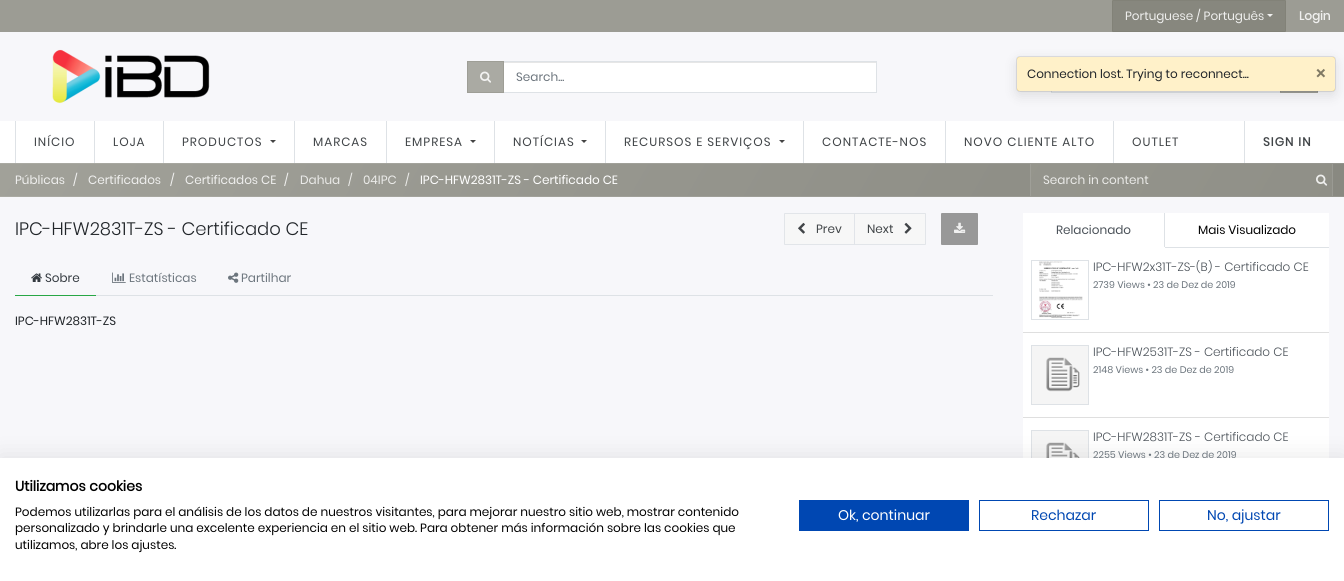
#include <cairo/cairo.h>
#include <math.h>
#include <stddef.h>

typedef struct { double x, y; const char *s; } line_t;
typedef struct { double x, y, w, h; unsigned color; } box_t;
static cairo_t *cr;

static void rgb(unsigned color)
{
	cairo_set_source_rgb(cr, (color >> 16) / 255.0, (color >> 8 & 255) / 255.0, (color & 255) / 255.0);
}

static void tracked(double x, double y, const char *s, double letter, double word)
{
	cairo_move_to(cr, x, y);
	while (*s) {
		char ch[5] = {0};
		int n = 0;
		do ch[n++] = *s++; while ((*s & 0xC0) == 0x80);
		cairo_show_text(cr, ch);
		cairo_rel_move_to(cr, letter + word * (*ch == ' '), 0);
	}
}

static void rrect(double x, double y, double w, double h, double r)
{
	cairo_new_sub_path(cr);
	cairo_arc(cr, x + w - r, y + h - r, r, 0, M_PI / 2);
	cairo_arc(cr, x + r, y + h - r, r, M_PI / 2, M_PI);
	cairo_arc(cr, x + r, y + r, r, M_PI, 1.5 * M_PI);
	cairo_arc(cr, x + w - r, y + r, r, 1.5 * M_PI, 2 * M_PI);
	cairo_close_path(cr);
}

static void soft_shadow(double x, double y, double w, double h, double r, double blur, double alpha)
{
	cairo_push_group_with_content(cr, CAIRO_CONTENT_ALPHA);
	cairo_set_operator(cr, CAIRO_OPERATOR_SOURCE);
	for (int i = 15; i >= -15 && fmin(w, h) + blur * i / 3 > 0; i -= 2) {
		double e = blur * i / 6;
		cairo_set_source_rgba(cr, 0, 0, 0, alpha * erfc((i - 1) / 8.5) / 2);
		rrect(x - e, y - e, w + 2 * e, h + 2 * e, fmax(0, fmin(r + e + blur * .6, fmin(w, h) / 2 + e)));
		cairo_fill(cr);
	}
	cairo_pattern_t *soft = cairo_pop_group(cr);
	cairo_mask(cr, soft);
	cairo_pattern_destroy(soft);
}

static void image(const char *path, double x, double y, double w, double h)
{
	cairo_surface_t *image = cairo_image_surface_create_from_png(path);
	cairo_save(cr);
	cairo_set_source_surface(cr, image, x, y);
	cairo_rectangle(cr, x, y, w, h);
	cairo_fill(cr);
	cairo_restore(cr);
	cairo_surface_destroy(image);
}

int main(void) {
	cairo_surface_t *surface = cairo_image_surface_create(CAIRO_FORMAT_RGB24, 1344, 581);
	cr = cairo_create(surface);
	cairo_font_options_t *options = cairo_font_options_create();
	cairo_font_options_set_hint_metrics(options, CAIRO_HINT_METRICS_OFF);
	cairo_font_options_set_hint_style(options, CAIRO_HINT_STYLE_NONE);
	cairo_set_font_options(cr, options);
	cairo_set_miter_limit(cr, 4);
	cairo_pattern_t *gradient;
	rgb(0xf7f7fa);
	cairo_paint(cr);
	rgb(0xaaaaa3);
	cairo_rectangle(cr, 1280, 91, 38, 2);
	cairo_fill(cr);
	rgb(0x9c9c94);
	cairo_rectangle(cr, 0, 0, 1344, 32);
	cairo_fill(cr);
	rgb(0x87877e);
	rrect(1112.5, 0.5, 173, 31, 0.5);
	cairo_fill_preserve(cr);
	rgb(0x828278);
	cairo_set_line_width(cr, 1);
	cairo_stroke(cr);
	rgb(0xf0f0ef);
	cairo_new_path(cr);
	cairo_move_to(cr, 1267, 14);
	cairo_line_to(cr, 1273, 14);
	cairo_line_to(cr, 1270, 17);
	cairo_close_path(cr);
	cairo_fill(cr);
	image("img/1.png", 52, 49, 158, 55);
	rgb(0xffffff);
	cairo_rectangle(cr, 504, 63, 372, 29);
	cairo_fill(cr);
	rgb(0xe6e6e6);
	cairo_rectangle(cr, 504, 62, 372, 1);
	cairo_fill(cr);
	cairo_rectangle(cr, 503.5, 61.5, 373, 31);
	rgb(0xdee2e6);
	cairo_stroke(cr);
	cairo_set_source_rgba(cr, 0.612, 0.612, 0.58, 0.85);
	cairo_rectangle(cr, 467, 61, 37, 32);
	cairo_fill(cr);
	cairo_rectangle(cr, 467.5, 61.5, 36, 31);
	cairo_stroke(cr);
	image("img/2.png", 480, 71, 11, 12);
	{
		static const box_t items[] = {
			{1051, 92, 230, 1, 0xdee2e6},
			{1280, 92, 1, 1, 0xa6a7a0},
			{1051, 91, 1, 2, 0xdee2e6},
		};
		for (size_t i = 0; i < sizeof items / sizeof *items; i++) {
			rgb(items[i].color);
			cairo_rectangle(cr, items[i].x, items[i].y, items[i].w, items[i].h);
			cairo_fill(cr);
		}
	}
	cairo_rectangle(cr, 1280.5, 61.5, 37, 31);
	cairo_set_source_rgba(cr, 0.612, 0.612, 0.58, 0.85);
	cairo_stroke(cr);
	{
		static const box_t items[] = {
			{0, 121, 1344, 42, 0xffffff},
			{15, 121, 1, 42, 0xdee2e6},
			{94, 121, 1, 42, 0xdee2e6},
			{163, 121, 1, 42, 0xdee2e6},
		};
		for (size_t i = 0; i < sizeof items / sizeof *items; i++) {
			rgb(items[i].color);
			cairo_rectangle(cr, items[i].x, items[i].y, items[i].w, items[i].h);
			cairo_fill(cr);
		}
	}
	rgb(0x444444);
	cairo_new_path(cr);
	cairo_move_to(cr, 270, 140);
	cairo_line_to(cr, 276, 140);
	cairo_line_to(cr, 273, 143);
	cairo_close_path(cr);
	cairo_fill(cr);
	rgb(0xdee2e6);
	cairo_rectangle(cr, 294, 121, 1, 42);
	cairo_fill(cr);
	cairo_rectangle(cr, 386, 121, 1, 42);
	cairo_fill(cr);
	rgb(0x444444);
	cairo_new_path(cr);
	cairo_move_to(cr, 470, 140);
	cairo_line_to(cr, 476, 140);
	cairo_line_to(cr, 473, 143);
	cairo_close_path(cr);
	cairo_fill(cr);
	rgb(0xdee2e6);
	cairo_rectangle(cr, 494, 121, 1, 42);
	cairo_fill(cr);
	rgb(0x444444);
	cairo_new_path(cr);
	cairo_move_to(cr, 581, 140);
	cairo_line_to(cr, 587, 140);
	cairo_line_to(cr, 584, 143);
	cairo_close_path(cr);
	cairo_fill(cr);
	rgb(0xdee2e6);
	cairo_rectangle(cr, 605, 121, 1, 42);
	cairo_fill(cr);
	rgb(0x444444);
	cairo_new_path(cr);
	cairo_move_to(cr, 779, 140);
	cairo_line_to(cr, 785, 140);
	cairo_line_to(cr, 782, 143);
	cairo_close_path(cr);
	cairo_fill(cr);
	{
		static const box_t items[] = {
			{803, 121, 1, 42, 0xdee2e6},
			{945, 121, 1, 42, 0xdee2e6},
			{1113, 121, 1, 42, 0xdee2e6},
			{1244, 121, 1, 42, 0xdee2e6},
		};
		for (size_t i = 0; i < sizeof items / sizeof *items; i++) {
			rgb(items[i].color);
			cairo_rectangle(cr, items[i].x, items[i].y, items[i].w, items[i].h);
			cairo_fill(cr);
		}
	}
	gradient = cairo_pattern_create_linear(161, -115, 1183, 475);
	cairo_pattern_add_color_stop_rgba(gradient, 0, 0.631, 0.631, 0.6, 1);
	cairo_pattern_add_color_stop_rgba(gradient, 1, 0.537, 0.537, 0.506, 1);
	cairo_set_source(cr, gradient);
	cairo_pattern_destroy(gradient);
	cairo_rectangle(cr, 0, 164, 1344, 32);
	cairo_fill(cr);
	gradient = cairo_pattern_create_linear(161, -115, 1183, 475);
	cairo_pattern_add_color_stop_rgba(gradient, 0, 0.651, 0.651, 0.62, 1);
	cairo_pattern_add_color_stop_rgba(gradient, 1, 0.561, 0.561, 0.529, 1);
	cairo_set_source(cr, gradient);
	cairo_pattern_destroy(gradient);
	cairo_rectangle(cr, 1031, 164, 301, 32);
	cairo_fill(cr);
	gradient = cairo_pattern_create_linear(161, -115, 1183, 475);
	cairo_pattern_add_color_stop_rgba(gradient, 0, 0.667, 0.667, 0.639, 1);
	cairo_pattern_add_color_stop_rgba(gradient, 1, 0.584, 0.584, 0.557, 1);
	cairo_set_source(cr, gradient);
	cairo_pattern_destroy(gradient);
	cairo_rectangle(cr, 0, 196, 1344, 1);
	cairo_fill(cr);
	cairo_rectangle(cr, 0, 163, 1344, 1);
	cairo_fill(cr);
	rgb(0x9a9a93);
	cairo_rectangle(cr, 1332, 164, 1, 32);
	cairo_fill(cr);
	rgb(0x9f9f98);
	cairo_rectangle(cr, 1030, 164, 1, 32);
	cairo_fill(cr);
	image("img/3.png", 1316, 174, 12, 12);
	rgb(0xf7f7f7);
	cairo_new_path(cr);
	cairo_move_to(cr, 785, 213.5);
	cairo_line_to(cr, 854.5, 213.5);
	cairo_line_to(cr, 854.5, 244.5);
	cairo_line_to(cr, 785, 244.5);
	cairo_curve_to(cr, 784.5, 244.5, 784.5, 244.5, 784.5, 244);
	cairo_line_to(cr, 784.5, 214);
	cairo_curve_to(cr, 784.5, 213.5, 784.5, 213.5, 785, 213.5);
	cairo_close_path(cr);
	cairo_fill_preserve(cr);
	rgb(0xe2e5e9);
	cairo_stroke(cr);
	image("img/4.png", 798, 222, 7, 12);
	cairo_set_source_rgba(cr, 0.969, 0.969, 0.969, 0.85);
	cairo_new_path(cr);
	cairo_move_to(cr, 854, 213);
	cairo_line_to(cr, 925, 213);
	cairo_curve_to(cr, 925.5, 213, 926, 213.5, 926, 214);
	cairo_line_to(cr, 926, 244);
	cairo_curve_to(cr, 926, 244.5, 925.5, 245, 925, 245);
	cairo_line_to(cr, 854, 245);
	cairo_close_path(cr);
	cairo_fill(cr);
	cairo_new_path(cr);
	cairo_move_to(cr, 854.5, 213.5);
	cairo_line_to(cr, 925, 213.5);
	cairo_curve_to(cr, 925.5, 213.5, 925.5, 213.5, 925.5, 214);
	cairo_line_to(cr, 925.5, 244);
	cairo_curve_to(cr, 925.5, 244.5, 925.5, 244.5, 925, 244.5);
	cairo_line_to(cr, 854.5, 244.5);
	cairo_close_path(cr);
	cairo_set_source_rgba(cr, 0.871, 0.886, 0.902, 0.85);
	cairo_stroke(cr);
	image("img/5.png", 904, 222, 8, 12);
	rgb(0x989898);
	rrect(941.5, 213.5, 36, 31, 0.5);
	cairo_fill_preserve(cr);
	cairo_stroke(cr);
	image("img/6.png", 954, 222, 12, 11);
	rgb(0xdee2e6);
	cairo_rectangle(cr, 96, 295, 897, 1);
	cairo_fill(cr);
	rgb(0x28a745);
	cairo_rectangle(cr, 15, 295, 81, 1);
	cairo_fill(cr);
	image("img/7.png", 31, 273, 11, 9);
	image("img/8.png", 112, 272, 14, 11);
	image("img/9.png", 228, 272, 11, 11);
	{
		static const box_t items[] = {
			{1165, 213, 164, 34, 0xffffff},
			{1165, 247, 164, 1, 0xdee2e6},
			{1023, 213, 141, 34, 0xffffff},
			{1164, 213, 1, 35, 0xdee2e6},
			{1023, 247, 142, 1, 0xffffff},
			{1023, 248, 306, 84, 0xffffff},
		};
		for (size_t i = 0; i < sizeof items / sizeof *items; i++) {
			rgb(items[i].color);
			cairo_rectangle(cr, items[i].x, items[i].y, items[i].w, items[i].h);
			cairo_fill(cr);
		}
	}
	image("img/10.png", 1039, 261, 44, 57);
	cairo_rectangle(cr, 1031.5, 260.5, 57, 59);
	rgb(0xdee2e6);
	cairo_stroke(cr);
	rgb(0xffffff);
	cairo_rectangle(cr, 1023, 333, 306, 84);
	cairo_fill(cr);
	rgb(0xdfdfdf);
	cairo_rectangle(cr, 1023, 332, 306, 1);
	cairo_fill(cr);
	image("img/11.png", 1032, 346, 56, 58);
	cairo_rectangle(cr, 1031.5, 345.5, 57, 59);
	rgb(0xdee2e6);
	cairo_stroke(cr);
	rgb(0xffffff);
	cairo_rectangle(cr, 1023, 418, 306, 40);
	cairo_fill(cr);
	rgb(0xdfdfdf);
	cairo_rectangle(cr, 1023, 417, 306, 1);
	cairo_fill(cr);
	image("img/12.png", 1032, 431, 56, 27);
	cairo_rectangle(cr, 1031.5, 430.5, 57, 59);
	rgb(0xdee2e6);
	cairo_stroke(cr);
	rgb(0x000000);
	soft_shadow(1016, 60, 320, 36, 4, 6, 0.1);
	rgb(0xffc107);
	rrect(1017, 57, 318, 34, 3);
	cairo_fill(cr);
	rrect(1016.5, 56.5, 319, 35, 3.5);
	cairo_set_source_rgba(cr, 0, 0, 0, 0.1);
	cairo_stroke(cr);
	cairo_set_source_rgba(cr, 1, 1, 1, 0.78);
	rrect(1017, 57, 318, 34, 3);
	cairo_fill(cr);
	rgb(0x000000);
	soft_shadow(0, 458, 1344, 123, 0, 12, 0.1);
	cairo_select_font_face(cr, "Poppins", CAIRO_FONT_SLANT_NORMAL, CAIRO_FONT_WEIGHT_NORMAL);
	cairo_set_font_size(cr, 12);
	rgb(0xf0f0ef);
	cairo_move_to(cr, 1125, 20);
	cairo_show_text(cr, "Portuguese / Português");
	cairo_select_font_face(cr, "Poppins", CAIRO_FONT_SLANT_NORMAL, CAIRO_FONT_WEIGHT_BOLD);
	cairo_move_to(cr, 1299, 20);
	cairo_show_text(cr, "Login");
	cairo_select_font_face(cr, "Poppins", CAIRO_FONT_SLANT_NORMAL, CAIRO_FONT_WEIGHT_NORMAL);
	rgb(0x6c757d);
	cairo_move_to(cr, 516, 81);
	cairo_show_text(cr, "Search...");
	rgb(0x414548);
	{
		static const line_t items[] = {
			{34, 146, "INÍCIO"},
			{113, 146, "LOJA"},
			{182, 146, "PRODUCTOS"},
			{313, 146, "MARCAS"},
			{405, 146, "EMPRESA"},
			{513, 146, "NOTÍCIAS"},
			{624, 146, "RECURSOS E SERVIÇOS"},
			{822, 146, "CONTACTE-NOS"},
			{964, 146, "NOVO CLIENTE ALTO"},
			{1132, 146, "OUTLET"},
		};
		for (size_t i = 0; i < sizeof items / sizeof *items; i++) {
			tracked(items[i].x, items[i].y, items[i].s, 1, 0);
		}
	}
	cairo_select_font_face(cr, "Poppins", CAIRO_FONT_SLANT_NORMAL, CAIRO_FONT_WEIGHT_BOLD);
	tracked(1263, 146, "SIGN IN", 1, 0);
	cairo_select_font_face(cr, "Poppins", CAIRO_FONT_SLANT_NORMAL, CAIRO_FONT_WEIGHT_NORMAL);
	rgb(0xf0f0ef);
	{
		static const line_t items[] = {
			{15, 184, "Públicas"},
			{73, 184, "/"},
			{88, 184, "Certificados"},
			{170, 184, "/"},
			{185, 184, "Certificados CE"},
			{284, 184, "/"},
		};
		for (size_t i = 0; i < sizeof items / sizeof *items; i++) {
			cairo_move_to(cr, items[i].x, items[i].y);
			cairo_show_text(cr, items[i].s);
		}
	}
	rgb(0xebebe9);
	{
		static const line_t items[] = {
			{300, 184, "Dahua"},
			{348, 184, "/"},
			{363, 184, "04IPC"},
			{405, 184, "/"},
		};
		for (size_t i = 0; i < sizeof items / sizeof *items; i++) {
			cairo_move_to(cr, items[i].x, items[i].y);
			cairo_show_text(cr, items[i].s);
		}
	}
	rgb(0xffffff);
	cairo_move_to(cr, 420, 184);
	cairo_show_text(cr, "IPC-HFW2831T-ZS - Certificado CE");
	rgb(0xebebe9);
	cairo_move_to(cr, 1043, 184);
	cairo_show_text(cr, "Search in content");
	cairo_select_font_face(cr, "Poppins Light", CAIRO_FONT_SLANT_NORMAL, CAIRO_FONT_WEIGHT_NORMAL);
	cairo_set_font_size(cr, 18);
	rgb(0x212529);
	cairo_move_to(cr, 15, 235);
	cairo_show_text(cr, "IPC-HFW2831T-ZS - Certificado CE");
	cairo_select_font_face(cr, "Poppins", CAIRO_FONT_SLANT_NORMAL, CAIRO_FONT_WEIGHT_NORMAL);
	cairo_set_font_size(cr, 12);
	rgb(0x414548);
	cairo_move_to(cr, 816, 233);
	cairo_show_text(cr, "Prev");
	cairo_move_to(cr, 867, 233);
	cairo_show_text(cr, "Next");
	rgb(0x343a40);
	cairo_move_to(cr, 45, 282);
	cairo_show_text(cr, "Sobre");
	rgb(0x6c757d);
	cairo_move_to(cr, 129, 282);
	cairo_show_text(cr, "Estatísticas");
	cairo_move_to(cr, 241, 282);
	cairo_show_text(cr, "Partilhar");
	rgb(0x212529);
	cairo_move_to(cr, 15, 325);
	cairo_show_text(cr, "IPC-HFW2831T-ZS");
	rgb(0x495057);
	cairo_move_to(cr, 1056, 234);
	cairo_show_text(cr, "Relacionado");
	rgb(0x000000);
	cairo_move_to(cr, 1198, 234);
	cairo_show_text(cr, "Mais Visualizado");
	cairo_save(cr);
	cairo_rectangle(cr, 1093, 260, 216, 14);
	cairo_clip(cr);
	cairo_select_font_face(cr, "Poppins Light", CAIRO_FONT_SLANT_NORMAL, CAIRO_FONT_WEIGHT_NORMAL);
	rgb(0x495057);
	cairo_move_to(cr, 1093, 271);
	cairo_show_text(cr, "IPC-HFW2x31T-ZS-(B) - Certificado CE");
	cairo_restore(cr);
	cairo_set_font_size(cr, 9.6);
	rgb(0x6c757d);
	cairo_move_to(cr, 1093, 288);
	cairo_show_text(cr, "2739 Views • 23 de Dez de 2019");
	cairo_select_font_face(cr, "Poppins Light", CAIRO_FONT_SLANT_NORMAL, CAIRO_FONT_WEIGHT_NORMAL);
	cairo_set_font_size(cr, 12);
	rgb(0x495057);
	cairo_move_to(cr, 1093, 356);
	cairo_show_text(cr, "IPC-HFW2531T-ZS - Certificado CE");
	cairo_select_font_face(cr, "Poppins", CAIRO_FONT_SLANT_NORMAL, CAIRO_FONT_WEIGHT_NORMAL);
	cairo_set_font_size(cr, 9.6);
	rgb(0x6c757d);
	cairo_move_to(cr, 1093, 373);
	cairo_show_text(cr, "2148 Views • 23 de Dez de 2019");
	cairo_select_font_face(cr, "Poppins Light", CAIRO_FONT_SLANT_NORMAL, CAIRO_FONT_WEIGHT_NORMAL);
	cairo_set_font_size(cr, 12);
	rgb(0x495057);
	cairo_move_to(cr, 1093, 441);
	cairo_show_text(cr, "IPC-HFW2831T-ZS - Certificado CE");
	cairo_select_font_face(cr, "Poppins", CAIRO_FONT_SLANT_NORMAL, CAIRO_FONT_WEIGHT_NORMAL);
	cairo_set_font_size(cr, 9.6);
	rgb(0x6c757d);
	cairo_move_to(cr, 1093, 458);
	cairo_show_text(cr, "2255 Views • 23 de Dez de 2019");
	cairo_set_font_size(cr, 12);
	rgb(0x212529);
	cairo_move_to(cr, 1027, 78);
	cairo_show_text(cr, "Connection lost. Trying to reconnect...");
	cairo_select_font_face(cr, "Poppins", CAIRO_FONT_SLANT_NORMAL, CAIRO_FONT_WEIGHT_BOLD);
	cairo_set_font_size(cr, 18);
	rgb(0x807964);
	cairo_move_to(cr, 1316, 80);
	cairo_show_text(cr, "×");
	rgb(0xffffff);
	cairo_rectangle(cr, 0, 458, 1344, 123);
	cairo_fill(cr);
	cairo_set_font_size(cr, 14);
	rgb(0x000000);
	cairo_move_to(cr, 15, 491);
	cairo_show_text(cr, "Utilizamos cookies");
	cairo_select_font_face(cr, "Poppins", CAIRO_FONT_SLANT_NORMAL, CAIRO_FONT_WEIGHT_NORMAL);
	cairo_set_font_size(cr, 12);
	{
		static const line_t items[] = {
			{15, 516, "Podemos utilizarlas para el análisis de los datos de nuestros visitantes, para mejorar nuestro sitio web, mostrar contenido"},
			{15, 532, "personalizado y brindarle una excelente experiencia en el sitio web. Para obtener más información sobre las cookies que"},
			{15, 549, "utilizamos, abre los ajustes."},
		};
		for (size_t i = 0; i < sizeof items / sizeof *items; i++) {
			cairo_move_to(cr, items[i].x, items[i].y);
			cairo_show_text(cr, items[i].s);
		}
	}
	rgb(0x0047b2);
	cairo_rectangle(cr, 799, 500, 170, 31);
	cairo_fill(cr);
	cairo_set_font_size(cr, 14);
	rgb(0xffffff);
	cairo_move_to(cr, 838, 520);
	cairo_show_text(cr, "Ok, continuar");
	cairo_rectangle(cr, 979.5, 500.5, 169, 30);
	rgb(0x0047b2);
	cairo_stroke(cr);
	cairo_move_to(cr, 1031, 520);
	cairo_show_text(cr, "Rechazar");
	cairo_rectangle(cr, 1159.5, 500.5, 169, 30);
	cairo_stroke(cr);
	cairo_move_to(cr, 1207, 520);
	cairo_show_text(cr, "No, ajustar");
	cairo_surface_write_to_png(surface, "page.png");
	cairo_font_options_destroy(options);
	cairo_destroy(cr);
	cairo_surface_destroy(surface);
	return 0;
}
